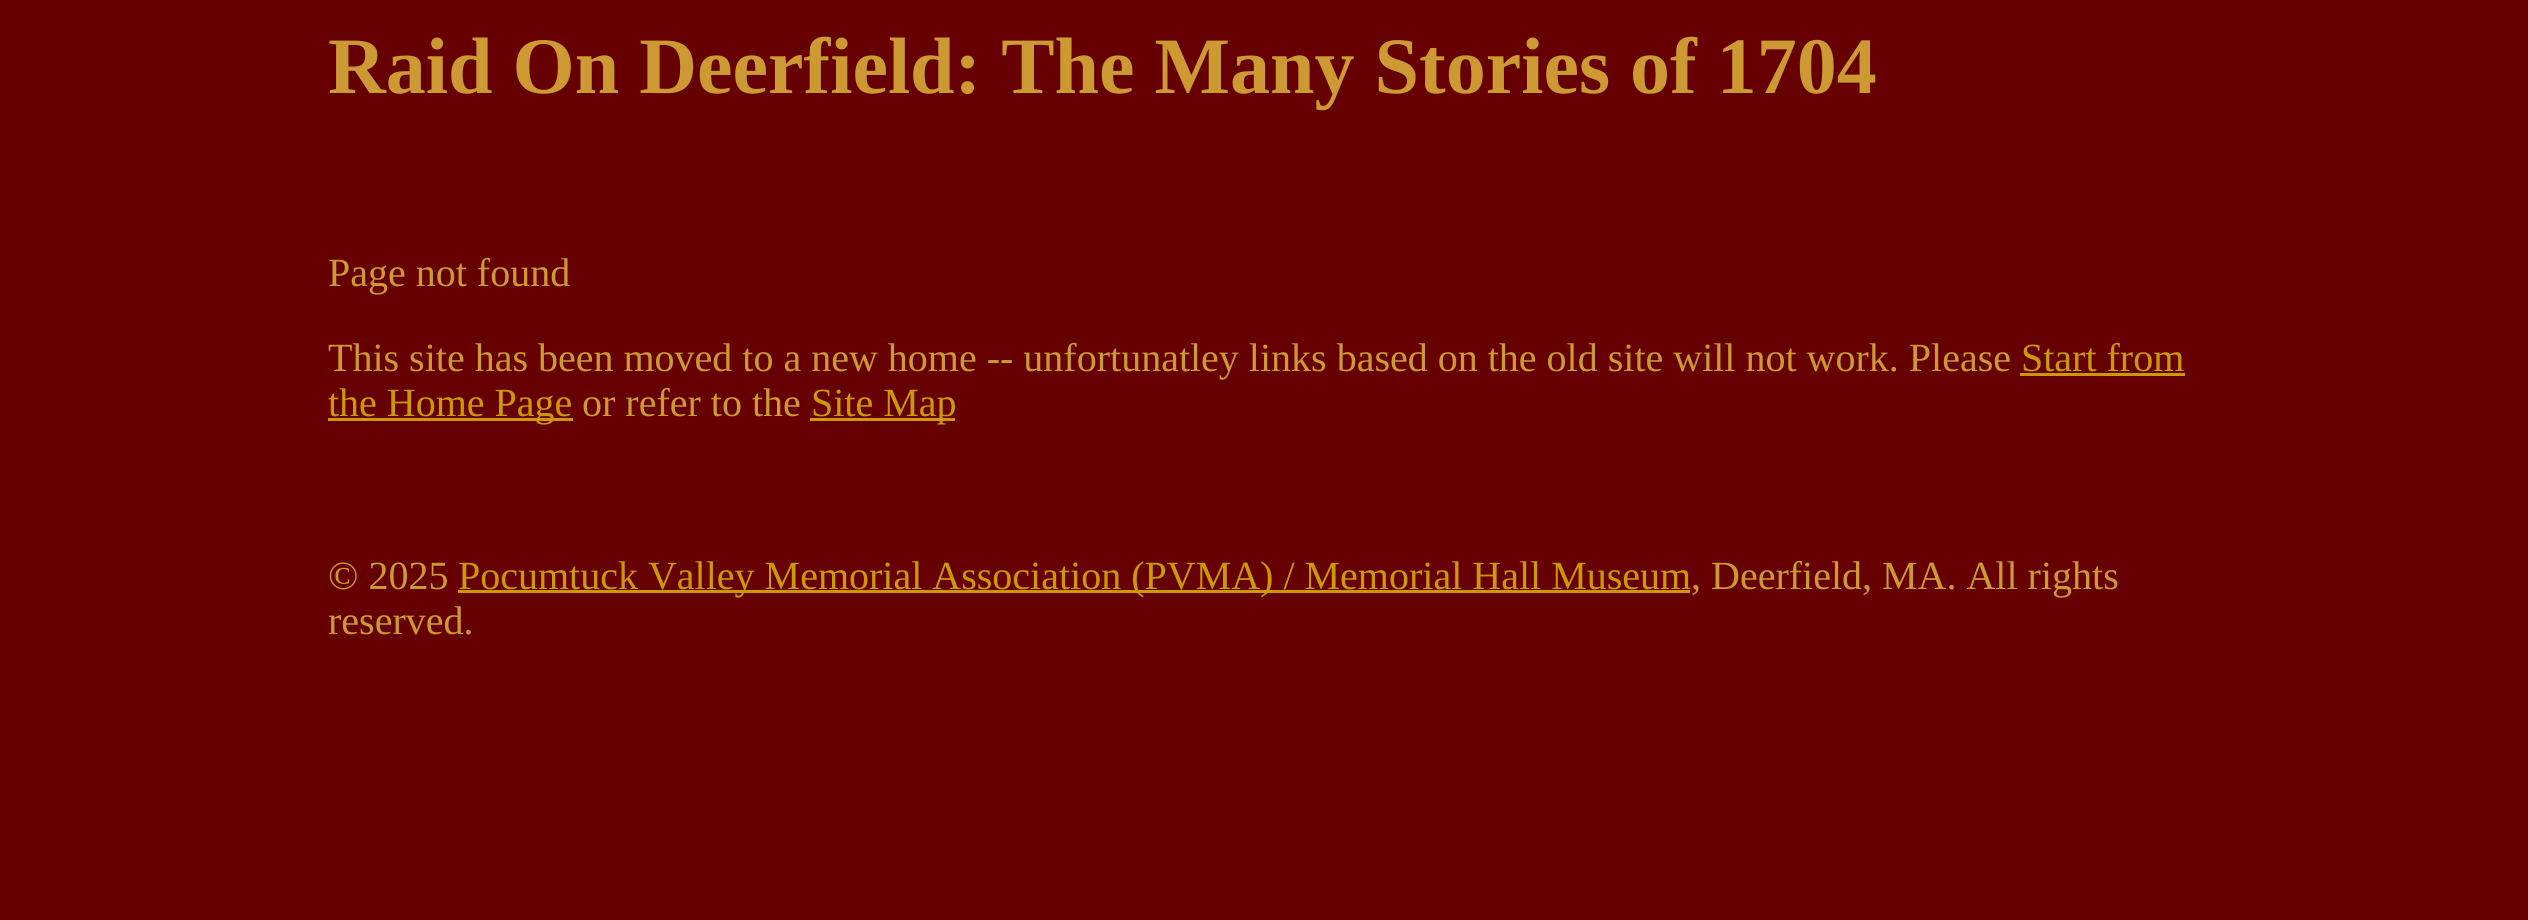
#include <cairo/cairo.h>
#include <math.h>
#include <stddef.h>

typedef struct { double x, y, w, h; unsigned color; } box_t;
static cairo_t *cr;

static void rgb(unsigned color)
{
	cairo_set_source_rgb(cr, (color >> 16) / 255.0, (color >> 8 & 255) / 255.0, (color & 255) / 255.0);
}

int main(void) {
	cairo_surface_t *surface = cairo_image_surface_create(CAIRO_FORMAT_RGB24, 2528, 920);
	cr = cairo_create(surface);
	cairo_font_options_t *options = cairo_font_options_create();
	cairo_font_options_set_hint_metrics(options, CAIRO_HINT_METRICS_OFF);
	cairo_font_options_set_hint_style(options, CAIRO_HINT_STYLE_NONE);
	cairo_set_font_options(cr, options);
	cairo_set_miter_limit(cr, 4);
	rgb(0x660000);
	cairo_paint(cr);
	{
		static const box_t items[] = {
			{2020, 373, 165, 3, 0xcc9900},
			{328, 418, 245, 3, 0xcc9900},
			{810, 418, 145, 3, 0xcc9900},
			{458, 590, 1232, 3, 0xcc9900},
		};
		for (size_t i = 0; i < sizeof items / sizeof *items; i++) {
			rgb(items[i].color);
			cairo_rectangle(cr, items[i].x, items[i].y, items[i].w, items[i].h);
			cairo_fill(cr);
		}
	}
	cairo_select_font_face(cr, "Liberation Serif", CAIRO_FONT_SLANT_NORMAL, CAIRO_FONT_WEIGHT_BOLD);
	cairo_set_font_size(cr, 80);
	rgb(0xcc9933);
	cairo_move_to(cr, 328, 93);
	cairo_show_text(cr, "Raid On Deerfield: The Many Stories of 1704");
	cairo_select_font_face(cr, "Liberation Serif", CAIRO_FONT_SLANT_NORMAL, CAIRO_FONT_WEIGHT_NORMAL);
	cairo_set_font_size(cr, 40);
	cairo_move_to(cr, 328, 286);
	cairo_show_text(cr, "Page not found");
	cairo_move_to(cr, 328, 371);
	cairo_show_text(cr, "This site has been moved to a new home -- unfortunatley links based on the old site will not work. Please");
	rgb(0xcc9900);
	cairo_move_to(cr, 2021, 371);
	cairo_show_text(cr, "Start from");
	cairo_move_to(cr, 328, 416);
	cairo_show_text(cr, "the Home Page");
	rgb(0xcc9933);
	cairo_move_to(cr, 582, 416);
	cairo_show_text(cr, "or refer to the");
	rgb(0xcc9900);
	cairo_move_to(cr, 811, 416);
	cairo_show_text(cr, "Site Map");
	rgb(0xcc9933);
	cairo_move_to(cr, 328, 589);
	cairo_show_text(cr, "© 2025");
	rgb(0xcc9900);
	cairo_move_to(cr, 458, 589);
	cairo_show_text(cr, "Pocumtuck Valley Memorial Association (PVMA) / Memorial Hall Museum");
	rgb(0xcc9933);
	cairo_move_to(cr, 1691, 589);
	cairo_show_text(cr, ", Deerfield, MA. All rights");
	cairo_move_to(cr, 328, 634);
	cairo_show_text(cr, "reserved.");
	cairo_surface_write_to_png(surface, "page.png");
	cairo_font_options_destroy(options);
	cairo_destroy(cr);
	cairo_surface_destroy(surface);
	return 0;
}
